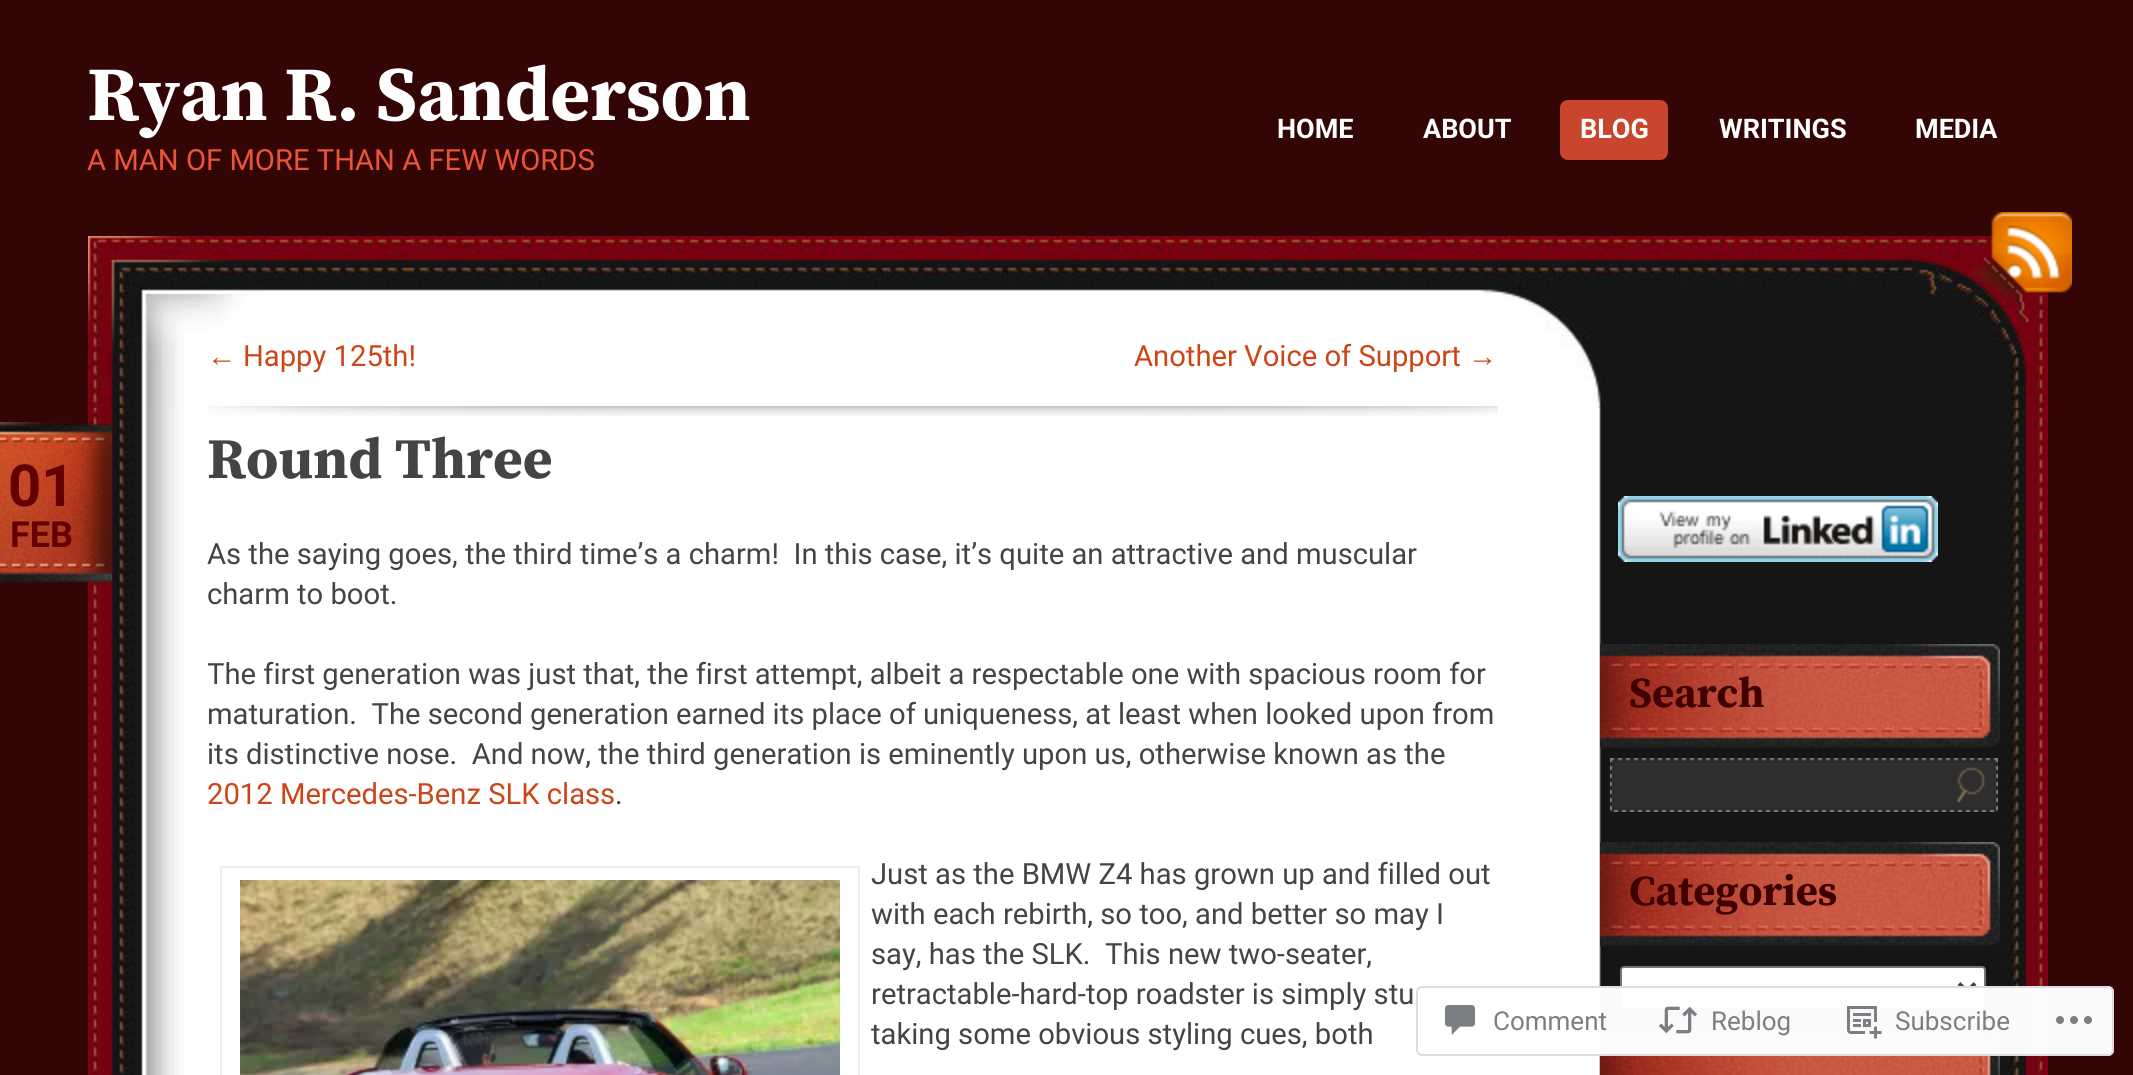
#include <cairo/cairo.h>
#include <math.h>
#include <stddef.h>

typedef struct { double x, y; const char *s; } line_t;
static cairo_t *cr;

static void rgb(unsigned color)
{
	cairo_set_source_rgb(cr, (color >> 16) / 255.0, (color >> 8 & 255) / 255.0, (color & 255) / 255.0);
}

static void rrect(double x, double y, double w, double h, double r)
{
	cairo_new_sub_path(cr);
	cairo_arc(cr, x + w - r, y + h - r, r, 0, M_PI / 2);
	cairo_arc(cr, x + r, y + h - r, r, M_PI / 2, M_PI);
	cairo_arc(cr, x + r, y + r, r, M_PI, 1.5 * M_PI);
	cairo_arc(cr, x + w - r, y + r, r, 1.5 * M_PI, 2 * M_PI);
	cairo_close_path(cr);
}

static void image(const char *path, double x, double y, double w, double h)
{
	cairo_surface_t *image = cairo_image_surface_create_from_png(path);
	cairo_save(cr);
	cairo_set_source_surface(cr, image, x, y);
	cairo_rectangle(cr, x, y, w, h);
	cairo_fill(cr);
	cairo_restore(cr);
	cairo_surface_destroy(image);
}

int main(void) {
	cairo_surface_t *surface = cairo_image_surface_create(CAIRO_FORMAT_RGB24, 2133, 1075);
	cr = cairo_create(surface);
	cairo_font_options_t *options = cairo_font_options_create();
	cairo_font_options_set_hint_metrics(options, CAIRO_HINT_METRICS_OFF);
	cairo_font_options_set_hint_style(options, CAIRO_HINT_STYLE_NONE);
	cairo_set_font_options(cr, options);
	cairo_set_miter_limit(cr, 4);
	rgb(0x340505);
	cairo_paint(cr);
	rgb(0xc9452d);
	rrect(1560, 100, 108, 60, 8);
	cairo_fill(cr);
	image("img/1.png", 88, 408, 1960, 667);
	image("img/3.png", 88, 236, 1960, 172);
	image("img/2.png", 1972, 212, 100, 110);
	image("img/4.png", 208, 406, 1290, 10);
	image("img/5.png", 0, 422, 112, 160);
	cairo_rectangle(cr, 221, 867, 638, 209);
	rgb(0xeeeeee);
	cairo_stroke(cr);
	image("img/6.png", 240, 880, 600, 195);
	image("img/7.png", 1618, 496, 320, 66);
	image("img/8.png", 1600, 644, 400, 104);
	image("img/9.png", 1610, 758, 388, 54);
	image("img/8.png", 1600, 842, 400, 104);
	rgb(0xffffff);
	rrect(1621, 967, 364, 42, 3);
	cairo_fill_preserve(cr);
	rgb(0x767676);
	cairo_stroke(cr);
	cairo_new_path(cr);
	cairo_move_to(cr, 1959, 983.5);
	cairo_line_to(cr, 1967, 991.5);
	cairo_line_to(cr, 1975, 983.5);
	rgb(0x444444);
	cairo_set_line_width(cr, 4);
	cairo_stroke(cr);
	image("img/10.png", 1600, 1030, 400, 45);
	cairo_set_source_rgba(cr, 1, 1, 1, 0.98);
	rrect(1416, 986, 698, 70, 6);
	cairo_fill(cr);
	rrect(1417, 987, 696, 68, 5);
	cairo_set_source_rgba(cr, 0.863, 0.863, 0.871, 0.98);
	cairo_set_line_width(cr, 2);
	cairo_stroke(cr);
	image("img/11.png", 1445, 1005, 30, 30);
	image("img/12.png", 1658, 1006, 40, 28);
	image("img/13.png", 1847, 1006, 35, 33);
	image("img/14.png", 2056, 1016, 36, 8);
	cairo_select_font_face(cr, "Source Serif Pro", CAIRO_FONT_SLANT_NORMAL, CAIRO_FONT_WEIGHT_BOLD);
	cairo_set_font_size(cr, 76.5);
	rgb(0xffffff);
	cairo_move_to(cr, 87, 120);
	cairo_show_text(cr, "Ryan R. Sanderson");
	cairo_select_font_face(cr, "Roboto", CAIRO_FONT_SLANT_NORMAL, CAIRO_FONT_WEIGHT_NORMAL);
	cairo_set_font_size(cr, 29.2);
	rgb(0xeb5438);
	cairo_move_to(cr, 87, 170);
	cairo_show_text(cr, "A MAN OF MORE THAN A FEW WORDS");
	cairo_select_font_face(cr, "Roboto", CAIRO_FONT_SLANT_NORMAL, CAIRO_FONT_WEIGHT_BOLD);
	cairo_set_font_size(cr, 27);
	rgb(0xffffff);
	{
		static const line_t items[] = {
			{1277, 138, "HOME"},
			{1423, 138, "ABOUT"},
			{1580, 138, "BLOG"},
			{1719, 138, "WRITINGS"},
			{1915, 138, "MEDIA"},
		};
		for (size_t i = 0; i < sizeof items / sizeof *items; i++) {
			cairo_move_to(cr, items[i].x, items[i].y);
			cairo_show_text(cr, items[i].s);
		}
	}
	cairo_select_font_face(cr, "Liberation Sans", CAIRO_FONT_SLANT_NORMAL, CAIRO_FONT_WEIGHT_NORMAL);
	cairo_set_font_size(cr, 29.2);
	rgb(0xcd4517);
	cairo_move_to(cr, 207, 366);
	cairo_show_text(cr, "←");
	cairo_select_font_face(cr, "Roboto", CAIRO_FONT_SLANT_NORMAL, CAIRO_FONT_WEIGHT_NORMAL);
	cairo_move_to(cr, 243, 366);
	cairo_show_text(cr, "Happy 125th!");
	cairo_move_to(cr, 1134, 366);
	cairo_show_text(cr, "Another Voice of Support");
	cairo_select_font_face(cr, "Liberation Sans", CAIRO_FONT_SLANT_NORMAL, CAIRO_FONT_WEIGHT_NORMAL);
	cairo_move_to(cr, 1468, 366);
	cairo_show_text(cr, "→");
	cairo_select_font_face(cr, "Source Serif Pro", CAIRO_FONT_SLANT_NORMAL, CAIRO_FONT_WEIGHT_BOLD);
	cairo_set_font_size(cr, 57.25);
	rgb(0x444444);
	cairo_move_to(cr, 207, 478);
	cairo_show_text(cr, "Round Three");
	cairo_select_font_face(cr, "Roboto", CAIRO_FONT_SLANT_NORMAL, CAIRO_FONT_WEIGHT_BOLD);
	cairo_set_font_size(cr, 58);
	rgb(0x640000);
	cairo_move_to(cr, 8, 506);
	cairo_show_text(cr, "01");
	cairo_set_font_size(cr, 36);
	cairo_move_to(cr, 10, 547);
	cairo_show_text(cr, "FEB");
	cairo_select_font_face(cr, "Roboto", CAIRO_FONT_SLANT_NORMAL, CAIRO_FONT_WEIGHT_NORMAL);
	cairo_set_font_size(cr, 29.2);
	rgb(0x444444);
	cairo_move_to(cr, 207, 564);
	cairo_show_text(cr, "As the saying goes, the third time’s a charm!  In this case, it’s quite an attractive and muscular");
	cairo_move_to(cr, 207, 604);
	cairo_show_text(cr, "charm to boot.");
	cairo_save(cr);
	cairo_rectangle(cr, 208, 534, 1290, 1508);
	cairo_clip(cr);
	cairo_move_to(cr, 207, 684);
	cairo_show_text(cr, "The first generation was just that, the first attempt, albeit a respectable one with spacious room for");
	cairo_restore(cr);
	cairo_move_to(cr, 207, 724);
	cairo_show_text(cr, "maturation.  The second generation earned its place of uniqueness, at least when looked upon from");
	cairo_move_to(cr, 207, 764);
	cairo_show_text(cr, "its distinctive nose.  And now, the third generation is eminently upon us, otherwise known as the");
	rgb(0xcd4517);
	cairo_move_to(cr, 207, 804);
	cairo_show_text(cr, "2012 Mercedes-Benz SLK class");
	rgb(0x444444);
	{
		static const line_t items[] = {
			{615, 804, "."},
			{871, 884, "Just as the BMW Z4 has grown up and filled out"},
			{871, 924, "with each rebirth, so too, and better so may I"},
			{871, 964, "say, has the SLK.  This new two-seater,"},
			{871, 1004, "retractable-hard-top roadster is simply stu"},
			{871, 1044, "taking some obvious styling cues, both"},
		};
		for (size_t i = 0; i < sizeof items / sizeof *items; i++) {
			cairo_move_to(cr, items[i].x, items[i].y);
			cairo_show_text(cr, items[i].s);
		}
	}
	cairo_select_font_face(cr, "Source Serif Pro", CAIRO_FONT_SLANT_NORMAL, CAIRO_FONT_WEIGHT_BOLD);
	cairo_set_font_size(cr, 42.5);
	rgb(0x400000);
	cairo_move_to(cr, 1629, 707);
	cairo_show_text(cr, "Search");
	cairo_move_to(cr, 1629, 905);
	cairo_show_text(cr, "Categories");
	cairo_select_font_face(cr, "Roboto", CAIRO_FONT_SLANT_NORMAL, CAIRO_FONT_WEIGHT_NORMAL);
	cairo_set_font_size(cr, 26);
	rgb(0x7b7f84);
	{
		static const line_t items[] = {
			{1493, 1030, "Comment"},
			{1711, 1030, "Reblog"},
			{1895, 1030, "Subscribe"},
		};
		for (size_t i = 0; i < sizeof items / sizeof *items; i++) {
			cairo_move_to(cr, items[i].x, items[i].y);
			cairo_show_text(cr, items[i].s);
		}
	}
	cairo_surface_write_to_png(surface, "page.png");
	cairo_font_options_destroy(options);
	cairo_destroy(cr);
	cairo_surface_destroy(surface);
	return 0;
}
